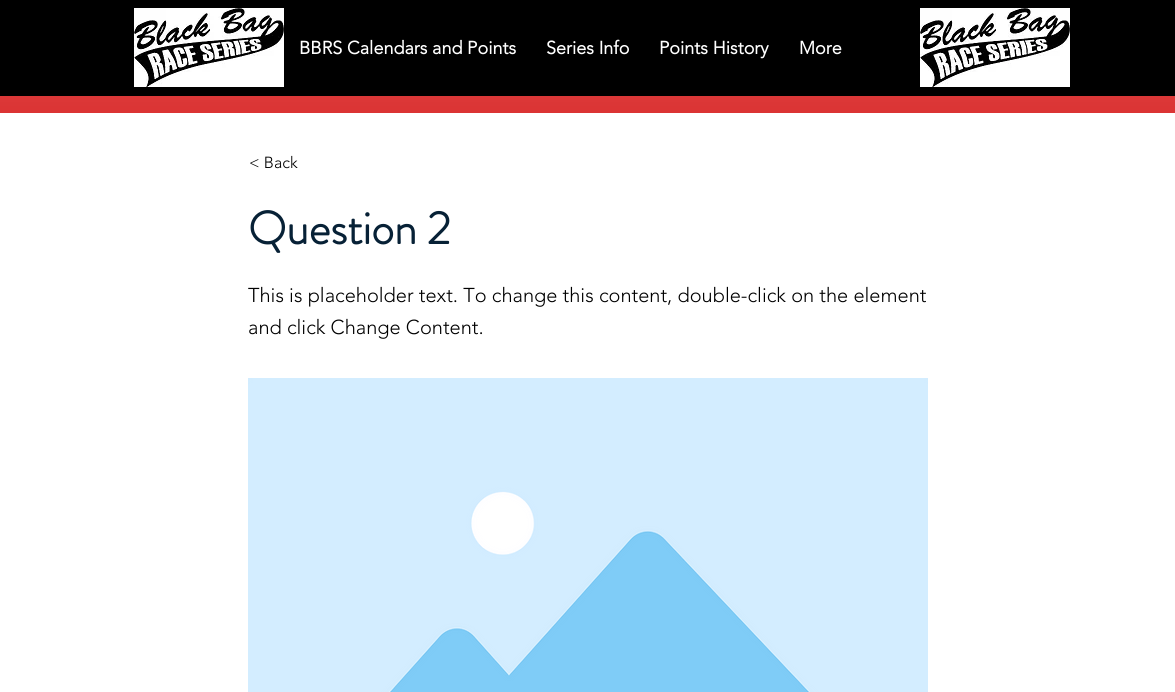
#include <cairo/cairo.h>
#include <math.h>
#include <stddef.h>

typedef struct { double x, y; const char *s; } line_t;
static cairo_t *cr;

static void rgb(unsigned color)
{
	cairo_set_source_rgb(cr, (color >> 16) / 255.0, (color >> 8 & 255) / 255.0, (color & 255) / 255.0);
}

static void image(const char *path, double x, double y, double w, double h)
{
	cairo_surface_t *image = cairo_image_surface_create_from_png(path);
	cairo_save(cr);
	cairo_set_source_surface(cr, image, x, y);
	cairo_rectangle(cr, x, y, w, h);
	cairo_fill(cr);
	cairo_restore(cr);
	cairo_surface_destroy(image);
}

int main(void) {
	cairo_surface_t *surface = cairo_image_surface_create(CAIRO_FORMAT_RGB24, 1175, 692);
	cr = cairo_create(surface);
	cairo_font_options_t *options = cairo_font_options_create();
	cairo_font_options_set_hint_metrics(options, CAIRO_HINT_METRICS_OFF);
	cairo_font_options_set_hint_style(options, CAIRO_HINT_STYLE_NONE);
	cairo_set_font_options(cr, options);
	cairo_set_miter_limit(cr, 4);
	rgb(0xffffff);
	cairo_paint(cr);
	rgb(0x000000);
	cairo_rectangle(cr, 0, 0, 1175, 96);
	cairo_fill(cr);
	image("img/1.png", 134, 8, 150, 79);
	image("img/1.png", 920, 8, 150, 79);
	rgb(0xd51212);
	cairo_rectangle(cr, 0, 96, 1175, 17);
	cairo_fill(cr);
	image("img/2.png", 0, 96, 1175, 17);
	image("img/3.png", 248, 378, 680, 314);
	cairo_select_font_face(cr, "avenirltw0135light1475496", CAIRO_FONT_SLANT_NORMAL, CAIRO_FONT_WEIGHT_BOLD);
	cairo_set_font_size(cr, 18);
	rgb(0xffffff);
	{
		static const line_t items[] = {
			{299, 54, "BBRS Calendars and Points"},
			{546, 54, "Series Info"},
			{659, 54, "Points History"},
			{799, 54, "More"},
		};
		for (size_t i = 0; i < sizeof items / sizeof *items; i++) {
			cairo_move_to(cr, items[i].x, items[i].y);
			cairo_show_text(cr, items[i].s);
		}
	}
	cairo_select_font_face(cr, "avenirltw0135light1475496 Light", CAIRO_FONT_SLANT_NORMAL, CAIRO_FONT_WEIGHT_NORMAL);
	cairo_set_font_size(cr, 16);
	rgb(0x000000);
	cairo_move_to(cr, 249, 168);
	cairo_show_text(cr, "< Back");
	cairo_select_font_face(cr, "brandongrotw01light", CAIRO_FONT_SLANT_NORMAL, CAIRO_FONT_WEIGHT_BOLD);
	cairo_set_font_size(cr, 46);
	rgb(0x072136);
	cairo_move_to(cr, 248, 244);
	cairo_show_text(cr, "Question 2");
	cairo_select_font_face(cr, "avenirltw0135light1475496 Light", CAIRO_FONT_SLANT_NORMAL, CAIRO_FONT_WEIGHT_NORMAL);
	cairo_set_font_size(cr, 20);
	rgb(0x000000);
	cairo_move_to(cr, 248, 302);
	cairo_show_text(cr, "This is placeholder text. To change this content, double-click on the element");
	cairo_move_to(cr, 248, 334);
	cairo_show_text(cr, "and click Change Content.");
	cairo_surface_write_to_png(surface, "page.png");
	cairo_font_options_destroy(options);
	cairo_destroy(cr);
	cairo_surface_destroy(surface);
	return 0;
}
